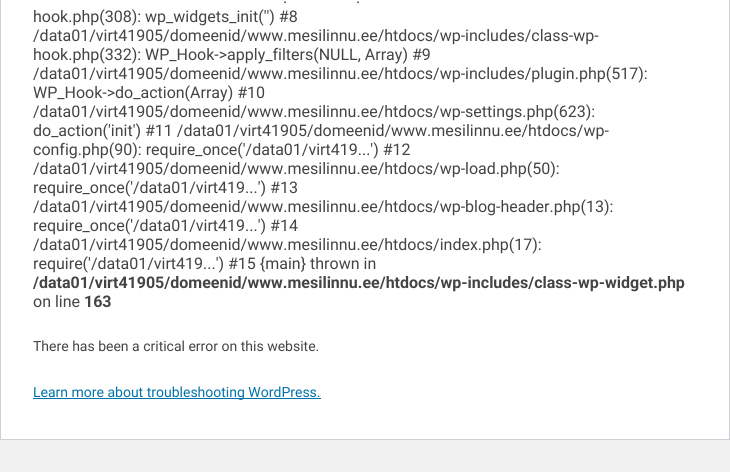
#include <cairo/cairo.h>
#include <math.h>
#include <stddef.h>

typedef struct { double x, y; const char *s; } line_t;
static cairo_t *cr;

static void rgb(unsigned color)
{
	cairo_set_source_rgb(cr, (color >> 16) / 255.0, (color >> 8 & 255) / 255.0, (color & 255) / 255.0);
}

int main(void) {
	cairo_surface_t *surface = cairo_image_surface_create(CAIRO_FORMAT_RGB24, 730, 472);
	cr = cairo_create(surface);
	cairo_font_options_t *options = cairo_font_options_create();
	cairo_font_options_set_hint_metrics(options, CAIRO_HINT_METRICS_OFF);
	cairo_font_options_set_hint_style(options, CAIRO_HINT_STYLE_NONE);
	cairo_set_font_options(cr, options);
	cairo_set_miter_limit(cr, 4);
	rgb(0xf1f1f1);
	cairo_paint(cr);
	rgb(0xffffff);
	cairo_rectangle(cr, 0.5, -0.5, 729, 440);
	cairo_fill_preserve(cr);
	rgb(0xccd0d4);
	cairo_set_line_width(cr, 1);
	cairo_stroke(cr);
	rgb(0x0073aa);
	cairo_rectangle(cr, 33, 398, 288, 1);
	cairo_fill(cr);
	cairo_select_font_face(cr, "Roboto", CAIRO_FONT_SLANT_NORMAL, CAIRO_FONT_WEIGHT_NORMAL);
	cairo_set_font_size(cr, 16);
	rgb(0x444444);
	{
		static const line_t items[] = {
			{283, 3, "."},
			{356, 3, "."},
			{33, 22, "hook.php(308): wp_widgets_init('') #8"},
			{33, 41, "/data01/virt41905/domeenid/www.mesilinnu.ee/htdocs/wp-includes/class-wp-"},
			{33, 60, "hook.php(332): WP_Hook->apply_filters(NULL, Array) #9"},
			{33, 79, "/data01/virt41905/domeenid/www.mesilinnu.ee/htdocs/wp-includes/plugin.php(517):"},
			{33, 98, "WP_Hook->do_action(Array) #10"},
			{33, 117, "/data01/virt41905/domeenid/www.mesilinnu.ee/htdocs/wp-settings.php(623):"},
			{33, 136, "do_action('init') #11 /data01/virt41905/domeenid/www.mesilinnu.ee/htdocs/wp-"},
			{33, 155, "config.php(90): require_once('/data01/virt419...') #12"},
			{33, 174, "/data01/virt41905/domeenid/www.mesilinnu.ee/htdocs/wp-load.php(50):"},
			{33, 193, "require_once('/data01/virt419...') #13"},
			{33, 212, "/data01/virt41905/domeenid/www.mesilinnu.ee/htdocs/wp-blog-header.php(13):"},
			{33, 231, "require_once('/data01/virt419...') #14"},
			{33, 250, "/data01/virt41905/domeenid/www.mesilinnu.ee/htdocs/index.php(17):"},
			{33, 269, "require('/data01/virt419...') #15 {main} thrown in"},
		};
		for (size_t i = 0; i < sizeof items / sizeof *items; i++) {
			cairo_move_to(cr, items[i].x, items[i].y);
			cairo_show_text(cr, items[i].s);
		}
	}
	cairo_select_font_face(cr, "Roboto", CAIRO_FONT_SLANT_NORMAL, CAIRO_FONT_WEIGHT_BOLD);
	cairo_move_to(cr, 33, 288);
	cairo_show_text(cr, "/data01/virt41905/domeenid/www.mesilinnu.ee/htdocs/wp-includes/class-wp-widget.php");
	cairo_select_font_face(cr, "Roboto", CAIRO_FONT_SLANT_NORMAL, CAIRO_FONT_WEIGHT_NORMAL);
	cairo_move_to(cr, 33, 307);
	cairo_show_text(cr, "on line");
	cairo_select_font_face(cr, "Roboto", CAIRO_FONT_SLANT_NORMAL, CAIRO_FONT_WEIGHT_BOLD);
	cairo_move_to(cr, 84, 307);
	cairo_show_text(cr, "163");
	cairo_select_font_face(cr, "Roboto", CAIRO_FONT_SLANT_NORMAL, CAIRO_FONT_WEIGHT_NORMAL);
	cairo_set_font_size(cr, 14);
	cairo_move_to(cr, 33, 351);
	cairo_show_text(cr, "There has been a critical error on this website.");
	rgb(0x0073aa);
	cairo_move_to(cr, 33, 397);
	cairo_show_text(cr, "Learn more about troubleshooting WordPress.");
	cairo_surface_write_to_png(surface, "page.png");
	cairo_font_options_destroy(options);
	cairo_destroy(cr);
	cairo_surface_destroy(surface);
	return 0;
}
